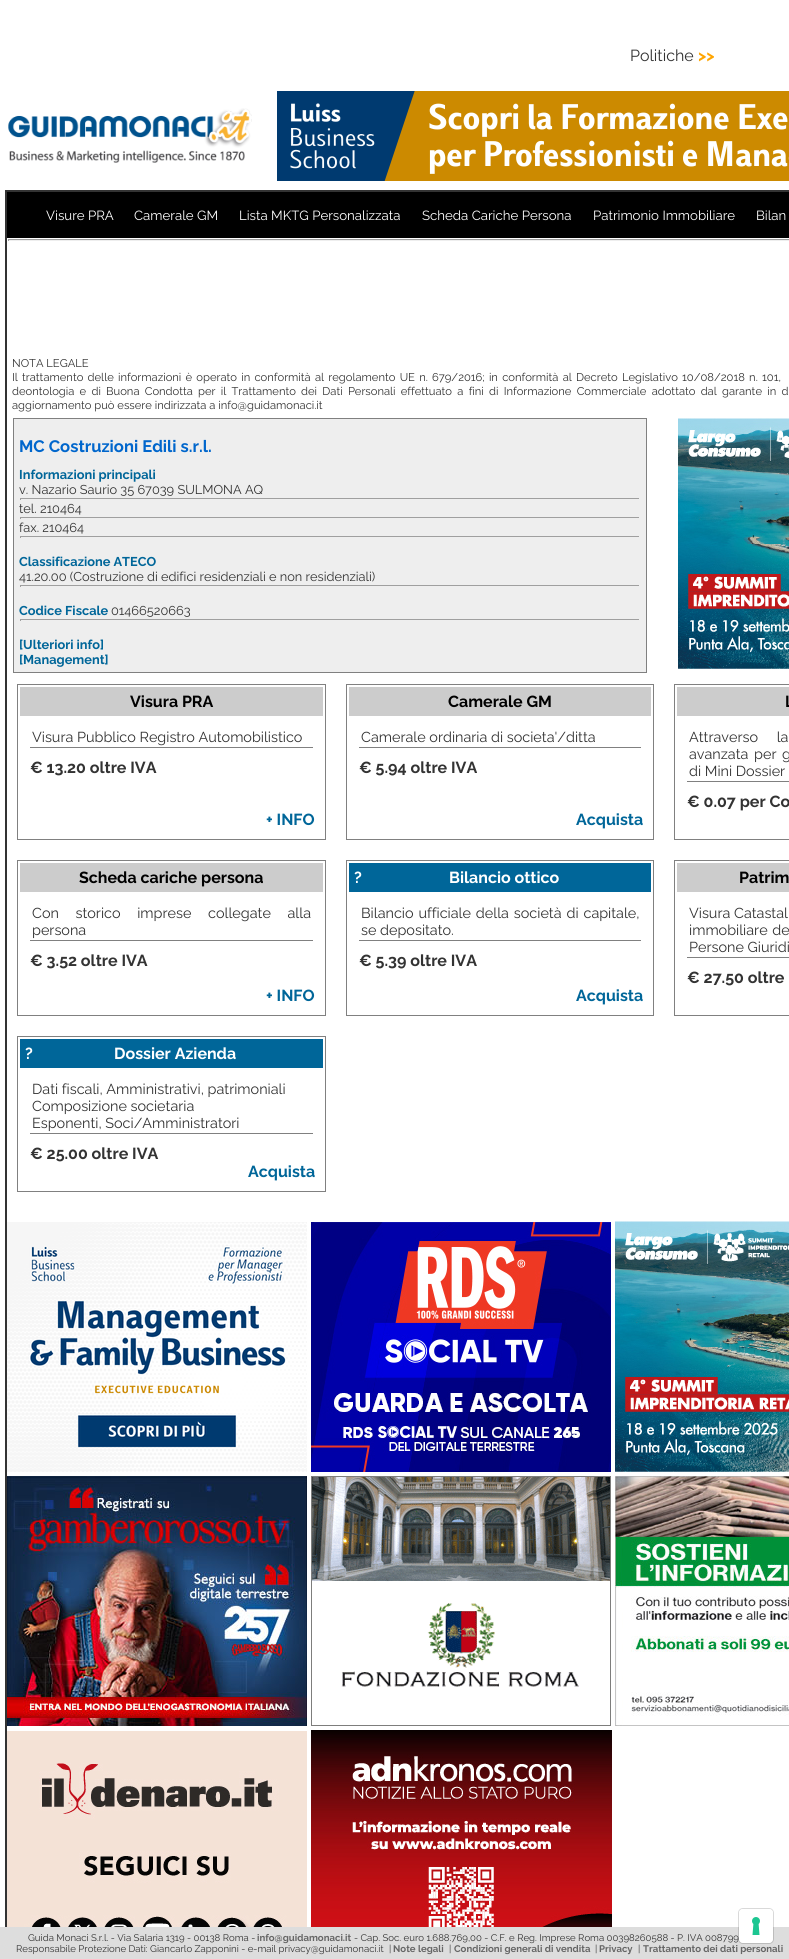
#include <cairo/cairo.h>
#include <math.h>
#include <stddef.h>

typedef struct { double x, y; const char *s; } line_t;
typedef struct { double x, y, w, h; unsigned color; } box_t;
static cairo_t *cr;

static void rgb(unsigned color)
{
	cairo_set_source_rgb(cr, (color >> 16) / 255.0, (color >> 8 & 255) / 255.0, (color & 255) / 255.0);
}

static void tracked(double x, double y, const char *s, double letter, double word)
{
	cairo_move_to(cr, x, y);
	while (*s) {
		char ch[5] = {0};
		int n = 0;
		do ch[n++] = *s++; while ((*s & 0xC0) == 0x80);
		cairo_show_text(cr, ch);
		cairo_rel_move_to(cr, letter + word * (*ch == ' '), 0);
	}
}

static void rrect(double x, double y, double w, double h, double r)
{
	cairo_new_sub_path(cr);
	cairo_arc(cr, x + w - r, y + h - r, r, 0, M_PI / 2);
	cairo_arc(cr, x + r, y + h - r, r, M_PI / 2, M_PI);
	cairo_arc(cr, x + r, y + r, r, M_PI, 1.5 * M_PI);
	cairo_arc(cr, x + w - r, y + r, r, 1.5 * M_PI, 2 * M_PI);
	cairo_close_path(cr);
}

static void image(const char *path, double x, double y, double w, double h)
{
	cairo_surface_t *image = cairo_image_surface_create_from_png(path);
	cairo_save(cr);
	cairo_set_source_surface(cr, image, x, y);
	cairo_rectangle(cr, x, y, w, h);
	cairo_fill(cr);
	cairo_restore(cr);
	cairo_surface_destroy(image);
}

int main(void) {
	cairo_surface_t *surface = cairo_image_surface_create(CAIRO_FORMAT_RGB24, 789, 1959);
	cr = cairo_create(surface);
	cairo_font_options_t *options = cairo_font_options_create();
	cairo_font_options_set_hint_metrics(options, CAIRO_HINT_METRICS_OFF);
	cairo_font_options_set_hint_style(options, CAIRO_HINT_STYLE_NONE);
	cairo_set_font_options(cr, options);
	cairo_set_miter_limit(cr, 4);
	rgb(0xffffff);
	cairo_paint(cr);
	image("img/1.png", 8, 108, 244, 55);
	image("img/2.png", 277, 91, 512, 90);
	cairo_rectangle(cr, 6, 191, 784, 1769);
	rgb(0x333333);
	cairo_stroke(cr);
	{
		static const box_t items[] = {
			{7, 192, 782, 46, 0x000000},
			{8, 239, 781, 1, 0x9f9f9f},
			{8, 240, 781, 1, 0xeeeeee},
			{8, 239, 1, 2, 0x9f9f9f},
		};
		for (size_t i = 0; i < sizeof items / sizeof *items; i++) {
			rgb(items[i].color);
			cairo_rectangle(cr, items[i].x, items[i].y, items[i].w, items[i].h);
			cairo_fill(cr);
		}
	}
	rgb(0xeeeeee);
	cairo_rectangle(cr, 13.5, 418.5, 633, 254);
	cairo_fill_preserve(cr);
	rgb(0x808080);
	cairo_set_line_width(cr, 1);
	cairo_stroke(cr);
	{
		static const box_t items[] = {
			{20, 498, 620, 1, 0x9f9f9f},
			{639, 498, 1, 2, 0xeeeeee},
			{20, 498, 1, 2, 0x9f9f9f},
			{20, 517, 620, 1, 0x9f9f9f},
			{639, 517, 1, 2, 0xeeeeee},
			{20, 517, 1, 2, 0x9f9f9f},
			{20, 536, 620, 1, 0x9f9f9f},
			{639, 536, 1, 2, 0xeeeeee},
			{20, 536, 1, 2, 0x9f9f9f},
			{20, 585, 620, 1, 0x9f9f9f},
			{639, 585, 1, 2, 0xeeeeee},
			{20, 585, 1, 2, 0x9f9f9f},
			{20, 619, 620, 1, 0x9f9f9f},
			{639, 619, 1, 2, 0xeeeeee},
			{20, 619, 1, 2, 0x9f9f9f},
		};
		for (size_t i = 0; i < sizeof items / sizeof *items; i++) {
			rgb(items[i].color);
			cairo_rectangle(cr, items[i].x, items[i].y, items[i].w, items[i].h);
			cairo_fill(cr);
		}
	}
	image("img/3.png", 678, 418, 111, 251);
	cairo_rectangle(cr, 17.5, 684.5, 308, 155);
	rgb(0x808080);
	cairo_stroke(cr);
	rgb(0xcccccc);
	cairo_rectangle(cr, 20, 687, 303, 29);
	cairo_fill(cr);
	rgb(0x808080);
	cairo_rectangle(cr, 30, 747, 283, 1);
	cairo_fill(cr);
	cairo_rectangle(cr, 346.5, 684.5, 307, 155);
	cairo_stroke(cr);
	rgb(0xcccccc);
	cairo_rectangle(cr, 349, 687, 302, 29);
	cairo_fill(cr);
	rgb(0x808080);
	cairo_rectangle(cr, 359, 747, 282, 1);
	cairo_fill(cr);
	cairo_rectangle(cr, 674.5, 684.5, 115, 155);
	cairo_stroke(cr);
	rgb(0xcccccc);
	cairo_rectangle(cr, 677, 687, 112, 29);
	cairo_fill(cr);
	rgb(0x808080);
	cairo_rectangle(cr, 687, 781, 102, 1);
	cairo_fill(cr);
	cairo_rectangle(cr, 17.5, 860.5, 308, 155);
	cairo_stroke(cr);
	rgb(0xcccccc);
	cairo_rectangle(cr, 20, 863, 303, 29);
	cairo_fill(cr);
	rgb(0x808080);
	cairo_rectangle(cr, 30, 940, 283, 1);
	cairo_fill(cr);
	cairo_rectangle(cr, 346.5, 860.5, 307, 155);
	cairo_stroke(cr);
	rgb(0x006699);
	cairo_rectangle(cr, 349, 863, 302, 29);
	cairo_fill(cr);
	rgb(0x808080);
	cairo_rectangle(cr, 359, 940, 282, 1);
	cairo_fill(cr);
	cairo_rectangle(cr, 674.5, 860.5, 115, 155);
	cairo_stroke(cr);
	rgb(0xcccccc);
	cairo_rectangle(cr, 677, 863, 112, 29);
	cairo_fill(cr);
	rgb(0x808080);
	cairo_rectangle(cr, 687, 957, 102, 1);
	cairo_fill(cr);
	cairo_rectangle(cr, 17.5, 1036.5, 308, 155);
	cairo_stroke(cr);
	rgb(0x006699);
	cairo_rectangle(cr, 20, 1039, 303, 29);
	cairo_fill(cr);
	rgb(0x808080);
	cairo_rectangle(cr, 30, 1133, 283, 1);
	cairo_fill(cr);
	image("img/4.png", 7, 1222, 300, 250);
	image("img/5.png", 311, 1222, 300, 250);
	image("img/6.png", 615, 1221, 174, 251);
	image("img/7.png", 7, 1476, 300, 250);
	image("img/8.png", 311, 1476, 300, 250);
	image("img/9.png", 615, 1476, 174, 250);
	image("img/10.png", 7, 1731, 300, 196);
	image("img/11.png", 311, 1730, 301, 197);
	rgb(0xdddddd);
	cairo_rectangle(cr, 0, 1927, 789, 32);
	cairo_fill(cr);
	cairo_select_font_face(cr, "Raleway", CAIRO_FONT_SLANT_NORMAL, CAIRO_FONT_WEIGHT_NORMAL);
	cairo_set_font_size(cr, 16);
	rgb(0x333333);
	cairo_move_to(cr, 630, 61);
	cairo_show_text(cr, "Politiche");
	cairo_select_font_face(cr, "Raleway", CAIRO_FONT_SLANT_NORMAL, CAIRO_FONT_WEIGHT_BOLD);
	rgb(0xffa500);
	cairo_move_to(cr, 698, 61);
	cairo_show_text(cr, ">>");
	cairo_select_font_face(cr, "Raleway", CAIRO_FONT_SLANT_NORMAL, CAIRO_FONT_WEIGHT_NORMAL);
	cairo_set_font_size(cr, 13.25);
	rgb(0xffffff);
	{
		static const line_t items[] = {
			{46, 220, "Visure PRA"},
			{134, 220, "Camerale GM"},
			{239, 220, "Lista MKTG Personalizzata"},
			{422, 220, "Scheda Cariche Persona"},
			{593, 220, "Patrimonio Immobiliare"},
			{756, 220, "Bilan"},
		};
		for (size_t i = 0; i < sizeof items / sizeof *items; i++) {
			cairo_move_to(cr, items[i].x, items[i].y);
			cairo_show_text(cr, items[i].s);
		}
	}
	cairo_set_font_size(cr, 11.2);
	rgb(0x333333);
	cairo_move_to(cr, 12, 367);
	cairo_show_text(cr, "NOTA LEGALE");
	tracked(12, 381, "Il trattamento delle informazioni è operato in conformità al regolamento UE n. 679/2016; in conformità al Decreto Legislativo 10/08/2018 n. 101,", 0, 1.4);
	tracked(12, 395, "deontologia e di Buona Condotta per il Trattamento dei Dati Personali effettuato a fini di Informazione Commerciale adottato dal garante in d", 0, 2.4);
	cairo_move_to(cr, 12, 409);
	cairo_show_text(cr, "aggiornamento può essere indirizzata a info@guidamonaci.it");
	cairo_select_font_face(cr, "Raleway", CAIRO_FONT_SLANT_NORMAL, CAIRO_FONT_WEIGHT_BOLD);
	cairo_set_font_size(cr, 16.6);
	rgb(0x0066cc);
	cairo_move_to(cr, 19, 452);
	cairo_show_text(cr, "MC Costruzioni Edili s.r.l.");
	cairo_set_font_size(cr, 12.8);
	rgb(0x006699);
	cairo_move_to(cr, 19, 479);
	cairo_show_text(cr, "Informazioni principali");
	cairo_select_font_face(cr, "Raleway", CAIRO_FONT_SLANT_NORMAL, CAIRO_FONT_WEIGHT_NORMAL);
	rgb(0x333333);
	{
		static const line_t items[] = {
			{19, 494, "v. Nazario Saurio 35 67039 SULMONA AQ"},
			{19, 513, "tel. 210464"},
			{19, 532, "fax. 210464"},
		};
		for (size_t i = 0; i < sizeof items / sizeof *items; i++) {
			cairo_move_to(cr, items[i].x, items[i].y);
			cairo_show_text(cr, items[i].s);
		}
	}
	cairo_select_font_face(cr, "Raleway", CAIRO_FONT_SLANT_NORMAL, CAIRO_FONT_WEIGHT_BOLD);
	rgb(0x006699);
	cairo_move_to(cr, 19, 566);
	cairo_show_text(cr, "Classificazione ATECO");
	cairo_select_font_face(cr, "Raleway", CAIRO_FONT_SLANT_NORMAL, CAIRO_FONT_WEIGHT_NORMAL);
	rgb(0x333333);
	cairo_move_to(cr, 19, 581);
	cairo_show_text(cr, "41.20.00 (Costruzione di edifici residenziali e non residenziali)");
	cairo_select_font_face(cr, "Raleway", CAIRO_FONT_SLANT_NORMAL, CAIRO_FONT_WEIGHT_BOLD);
	rgb(0x006699);
	cairo_move_to(cr, 19, 615);
	cairo_show_text(cr, "Codice Fiscale");
	cairo_select_font_face(cr, "Raleway", CAIRO_FONT_SLANT_NORMAL, CAIRO_FONT_WEIGHT_NORMAL);
	rgb(0x333333);
	cairo_move_to(cr, 111, 615);
	cairo_show_text(cr, "01466520663");
	cairo_select_font_face(cr, "Raleway", CAIRO_FONT_SLANT_NORMAL, CAIRO_FONT_WEIGHT_BOLD);
	rgb(0x006699);
	cairo_move_to(cr, 19, 649);
	cairo_show_text(cr, "[Ulteriori info]");
	cairo_move_to(cr, 19, 664);
	cairo_show_text(cr, "[Management]");
	cairo_set_font_size(cr, 16);
	rgb(0x000000);
	cairo_move_to(cr, 130, 707);
	cairo_show_text(cr, "Visura PRA");
	cairo_select_font_face(cr, "Raleway", CAIRO_FONT_SLANT_NORMAL, CAIRO_FONT_WEIGHT_NORMAL);
	cairo_set_font_size(cr, 14.4);
	rgb(0x333333);
	cairo_move_to(cr, 32, 742);
	cairo_show_text(cr, "Visura Pubblico Registro Automobilistico");
	cairo_select_font_face(cr, "Raleway", CAIRO_FONT_SLANT_NORMAL, CAIRO_FONT_WEIGHT_BOLD);
	cairo_set_font_size(cr, 16);
	cairo_move_to(cr, 30, 773);
	cairo_show_text(cr, "€ 13.20 oltre IVA");
	rgb(0x006699);
	cairo_move_to(cr, 266, 825);
	cairo_show_text(cr, "+ INFO");
	rgb(0x000000);
	cairo_move_to(cr, 448, 707);
	cairo_show_text(cr, "Camerale GM");
	cairo_select_font_face(cr, "Raleway", CAIRO_FONT_SLANT_NORMAL, CAIRO_FONT_WEIGHT_NORMAL);
	cairo_set_font_size(cr, 14.4);
	rgb(0x333333);
	cairo_move_to(cr, 361, 742);
	cairo_show_text(cr, "Camerale ordinaria di societa'/ditta");
	cairo_select_font_face(cr, "Raleway", CAIRO_FONT_SLANT_NORMAL, CAIRO_FONT_WEIGHT_BOLD);
	cairo_set_font_size(cr, 16);
	cairo_move_to(cr, 359, 773);
	cairo_show_text(cr, "€ 5.94 oltre IVA");
	rgb(0x006699);
	cairo_move_to(cr, 576, 825);
	cairo_show_text(cr, "Acquista");
	rgb(0x000000);
	cairo_move_to(cr, 785, 707);
	cairo_show_text(cr, "L");
	cairo_select_font_face(cr, "Raleway", CAIRO_FONT_SLANT_NORMAL, CAIRO_FONT_WEIGHT_NORMAL);
	cairo_set_font_size(cr, 14.4);
	rgb(0x333333);
	tracked(689, 742, "Attraverso la", 0, 15);
	tracked(689, 759, "avanzata per g", 0, 2);
	cairo_move_to(cr, 689, 776);
	cairo_show_text(cr, "di Mini Dossier");
	cairo_select_font_face(cr, "Raleway", CAIRO_FONT_SLANT_NORMAL, CAIRO_FONT_WEIGHT_BOLD);
	cairo_set_font_size(cr, 16);
	cairo_move_to(cr, 687, 807);
	cairo_show_text(cr, "€ 0.07 per Co");
	rgb(0x000000);
	cairo_move_to(cr, 79, 883);
	cairo_show_text(cr, "Scheda cariche persona");
	cairo_select_font_face(cr, "Raleway", CAIRO_FONT_SLANT_NORMAL, CAIRO_FONT_WEIGHT_NORMAL);
	cairo_set_font_size(cr, 14.4);
	rgb(0x333333);
	tracked(32, 918, "Con storico imprese collegate alla", 0, 13);
	cairo_move_to(cr, 32, 935);
	cairo_show_text(cr, "persona");
	cairo_select_font_face(cr, "Raleway", CAIRO_FONT_SLANT_NORMAL, CAIRO_FONT_WEIGHT_BOLD);
	cairo_set_font_size(cr, 16);
	cairo_move_to(cr, 30, 966);
	cairo_show_text(cr, "€ 3.52 oltre IVA");
	rgb(0x006699);
	cairo_move_to(cr, 266, 1001);
	cairo_show_text(cr, "+ INFO");
	rgb(0xffffff);
	cairo_move_to(cr, 354, 883);
	cairo_show_text(cr, "?");
	cairo_move_to(cr, 449, 883);
	cairo_show_text(cr, "Bilancio ottico");
	cairo_select_font_face(cr, "Raleway", CAIRO_FONT_SLANT_NORMAL, CAIRO_FONT_WEIGHT_NORMAL);
	cairo_set_font_size(cr, 14.4);
	rgb(0x333333);
	tracked(361, 918, "Bilancio ufficiale della società di capitale,", 0, 1.25);
	cairo_move_to(cr, 361, 935);
	cairo_show_text(cr, "se depositato.");
	cairo_select_font_face(cr, "Raleway", CAIRO_FONT_SLANT_NORMAL, CAIRO_FONT_WEIGHT_BOLD);
	cairo_set_font_size(cr, 16);
	cairo_move_to(cr, 359, 966);
	cairo_show_text(cr, "€ 5.39 oltre IVA");
	rgb(0x006699);
	cairo_move_to(cr, 576, 1001);
	cairo_show_text(cr, "Acquista");
	rgb(0x000000);
	cairo_move_to(cr, 739, 883);
	cairo_show_text(cr, "Patrim");
	cairo_select_font_face(cr, "Raleway", CAIRO_FONT_SLANT_NORMAL, CAIRO_FONT_WEIGHT_NORMAL);
	cairo_set_font_size(cr, 14.4);
	rgb(0x333333);
	cairo_move_to(cr, 689, 918);
	cairo_show_text(cr, "Visura Catastal");
	tracked(689, 935, "immobiliare de", 0, 1);
	cairo_move_to(cr, 689, 952);
	cairo_show_text(cr, "Persone Giuridi");
	cairo_select_font_face(cr, "Raleway", CAIRO_FONT_SLANT_NORMAL, CAIRO_FONT_WEIGHT_BOLD);
	cairo_set_font_size(cr, 16);
	cairo_move_to(cr, 687, 983);
	cairo_show_text(cr, "€ 27.50 oltre");
	rgb(0xffffff);
	cairo_move_to(cr, 25, 1059);
	cairo_show_text(cr, "?");
	cairo_move_to(cr, 114, 1059);
	cairo_show_text(cr, "Dossier Azienda");
	cairo_select_font_face(cr, "Raleway", CAIRO_FONT_SLANT_NORMAL, CAIRO_FONT_WEIGHT_NORMAL);
	cairo_set_font_size(cr, 14.4);
	rgb(0x333333);
	{
		static const line_t items[] = {
			{32, 1094, "Dati fiscali, Amministrativi, patrimoniali"},
			{32, 1111, "Composizione societaria"},
			{32, 1128, "Esponenti, Soci/Amministratori"},
		};
		for (size_t i = 0; i < sizeof items / sizeof *items; i++) {
			cairo_move_to(cr, items[i].x, items[i].y);
			cairo_show_text(cr, items[i].s);
		}
	}
	cairo_select_font_face(cr, "Raleway", CAIRO_FONT_SLANT_NORMAL, CAIRO_FONT_WEIGHT_BOLD);
	cairo_set_font_size(cr, 16);
	cairo_move_to(cr, 30, 1159);
	cairo_show_text(cr, "€ 25.00 oltre IVA");
	rgb(0x006699);
	cairo_move_to(cr, 248, 1177);
	cairo_show_text(cr, "Acquista");
	cairo_select_font_face(cr, "Raleway", CAIRO_FONT_SLANT_NORMAL, CAIRO_FONT_WEIGHT_NORMAL);
	cairo_set_font_size(cr, 9.6);
	rgb(0x333333);
	cairo_move_to(cr, 28, 1941);
	cairo_show_text(cr, "Guida Monaci S.r.l. - Via Salaria 1319 - 00138 Roma -");
	cairo_select_font_face(cr, "Raleway", CAIRO_FONT_SLANT_NORMAL, CAIRO_FONT_WEIGHT_BOLD);
	rgb(0x666666);
	cairo_move_to(cr, 257, 1941);
	cairo_show_text(cr, "info@guidamonaci.it");
	cairo_select_font_face(cr, "Raleway", CAIRO_FONT_SLANT_NORMAL, CAIRO_FONT_WEIGHT_NORMAL);
	rgb(0x333333);
	cairo_move_to(cr, 354, 1941);
	cairo_show_text(cr, "- Cap. Soc. euro 1.688.769,00 - C.F. e Reg. Imprese Roma 00398260588 - P. IVA 008799");
	rrect(738.5, 1908.5, 35, 35, 4.5);
	cairo_set_source_rgba(cr, 0, 0, 0, 0.15);
	cairo_stroke(cr);
	rgb(0xffffff);
	rrect(739, 1909, 34, 34, 4);
	cairo_fill(cr);
	image("img/12.png", 752, 1917, 8, 18);
	rgb(0x333333);
	cairo_move_to(cr, 16, 1952);
	cairo_show_text(cr, "Responsabile Protezione Dati: Giancarlo Zapponini - e-mail privacy@guidamonaci.it");
	cairo_move_to(cr, 389, 1952);
	cairo_show_text(cr, "|");
	cairo_select_font_face(cr, "Raleway", CAIRO_FONT_SLANT_NORMAL, CAIRO_FONT_WEIGHT_BOLD);
	rgb(0x666666);
	cairo_move_to(cr, 393, 1952);
	cairo_show_text(cr, "Note legali");
	cairo_select_font_face(cr, "Raleway", CAIRO_FONT_SLANT_NORMAL, CAIRO_FONT_WEIGHT_NORMAL);
	rgb(0x333333);
	cairo_move_to(cr, 449, 1952);
	cairo_show_text(cr, "|");
	cairo_select_font_face(cr, "Raleway", CAIRO_FONT_SLANT_NORMAL, CAIRO_FONT_WEIGHT_BOLD);
	rgb(0x666666);
	cairo_move_to(cr, 454, 1952);
	cairo_show_text(cr, "Condizioni generali di vendita");
	cairo_select_font_face(cr, "Raleway", CAIRO_FONT_SLANT_NORMAL, CAIRO_FONT_WEIGHT_NORMAL);
	rgb(0x333333);
	cairo_move_to(cr, 595, 1952);
	cairo_show_text(cr, "|");
	cairo_select_font_face(cr, "Raleway", CAIRO_FONT_SLANT_NORMAL, CAIRO_FONT_WEIGHT_BOLD);
	rgb(0x666666);
	cairo_move_to(cr, 599, 1952);
	cairo_show_text(cr, "Privacy");
	cairo_select_font_face(cr, "Raleway", CAIRO_FONT_SLANT_NORMAL, CAIRO_FONT_WEIGHT_NORMAL);
	rgb(0x333333);
	cairo_move_to(cr, 638, 1952);
	cairo_show_text(cr, "|");
	cairo_select_font_face(cr, "Raleway", CAIRO_FONT_SLANT_NORMAL, CAIRO_FONT_WEIGHT_BOLD);
	rgb(0x666666);
	cairo_move_to(cr, 643, 1952);
	cairo_show_text(cr, "Trattamento dei dati personali");
	cairo_surface_write_to_png(surface, "page.png");
	cairo_font_options_destroy(options);
	cairo_destroy(cr);
	cairo_surface_destroy(surface);
	return 0;
}
